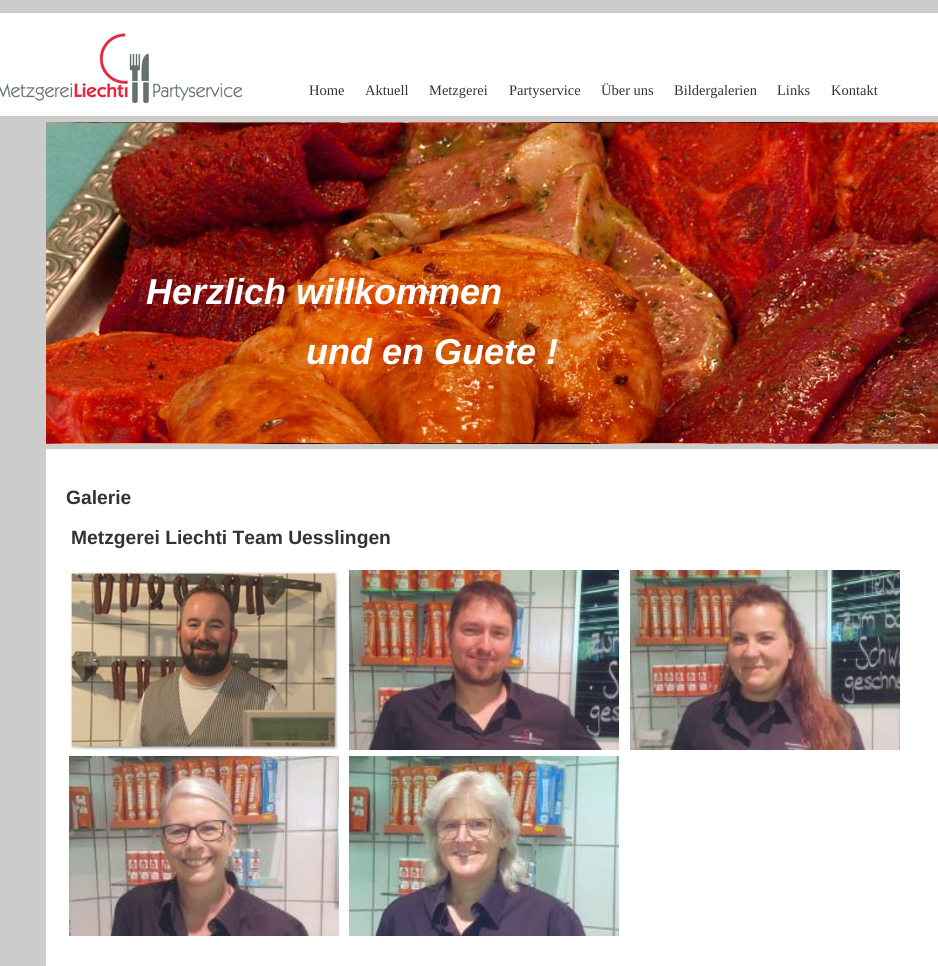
#include <cairo/cairo.h>
#include <math.h>
#include <stddef.h>

typedef struct { double x, y; const char *s; } line_t;
static cairo_t *cr;

static void rgb(unsigned color)
{
	cairo_set_source_rgb(cr, (color >> 16) / 255.0, (color >> 8 & 255) / 255.0, (color & 255) / 255.0);
}

static void image(const char *path, double x, double y, double w, double h)
{
	cairo_surface_t *image = cairo_image_surface_create_from_png(path);
	cairo_save(cr);
	cairo_set_source_surface(cr, image, x, y);
	cairo_rectangle(cr, x, y, w, h);
	cairo_fill(cr);
	cairo_restore(cr);
	cairo_surface_destroy(image);
}

int main(void) {
	cairo_surface_t *surface = cairo_image_surface_create(CAIRO_FORMAT_RGB24, 938, 966);
	cr = cairo_create(surface);
	cairo_font_options_t *options = cairo_font_options_create();
	cairo_font_options_set_hint_metrics(options, CAIRO_HINT_METRICS_OFF);
	cairo_font_options_set_hint_style(options, CAIRO_HINT_STYLE_NONE);
	cairo_set_font_options(cr, options);
	cairo_set_miter_limit(cr, 4);
	rgb(0xcccccc);
	cairo_paint(cr);
	image("img/1.png", 0, 13, 938, 103);
	image("img/2.png", 46, 122, 892, 322);
	rgb(0xffffff);
	cairo_rectangle(cr, 46, 449, 892, 517);
	cairo_fill(cr);
	image("img/3.png", 69, 570, 270, 180);
	image("img/4.png", 349, 570, 270, 180);
	image("img/5.png", 630, 570, 270, 180);
	image("img/6.png", 69, 756, 270, 180);
	image("img/7.png", 349, 756, 270, 180);
	cairo_select_font_face(cr, "Liberation Serif", CAIRO_FONT_SLANT_NORMAL, CAIRO_FONT_WEIGHT_NORMAL);
	cairo_set_font_size(cr, 14.5);
	rgb(0x333333);
	{
		static const line_t items[] = {
			{309, 95, "Home"},
			{365, 95, "Aktuell"},
			{429, 95, "Metzgerei"},
			{509, 95, "Partyservice"},
			{601, 95, "Über uns"},
			{674, 95, "Bildergalerien"},
			{777, 95, "Links"},
			{831, 95, "Kontakt"},
		};
		for (size_t i = 0; i < sizeof items / sizeof *items; i++) {
			cairo_move_to(cr, items[i].x, items[i].y);
			cairo_show_text(cr, items[i].s);
		}
	}
	cairo_select_font_face(cr, "Liberation Sans", CAIRO_FONT_SLANT_ITALIC, CAIRO_FONT_WEIGHT_BOLD);
	cairo_set_font_size(cr, 36);
	rgb(0xffffff);
	cairo_move_to(cr, 146, 304);
	cairo_show_text(cr, "Herzlich willkommen");
	cairo_move_to(cr, 306, 364);
	cairo_show_text(cr, "und en Guete !");
	cairo_select_font_face(cr, "Liberation Sans", CAIRO_FONT_SLANT_NORMAL, CAIRO_FONT_WEIGHT_BOLD);
	cairo_set_font_size(cr, 19.25);
	rgb(0x333333);
	cairo_move_to(cr, 66, 504);
	cairo_show_text(cr, "Galerie");
	cairo_move_to(cr, 71, 544);
	cairo_show_text(cr, "Metzgerei Liechti Team Uesslingen");
	cairo_surface_write_to_png(surface, "page.png");
	cairo_font_options_destroy(options);
	cairo_destroy(cr);
	cairo_surface_destroy(surface);
	return 0;
}
